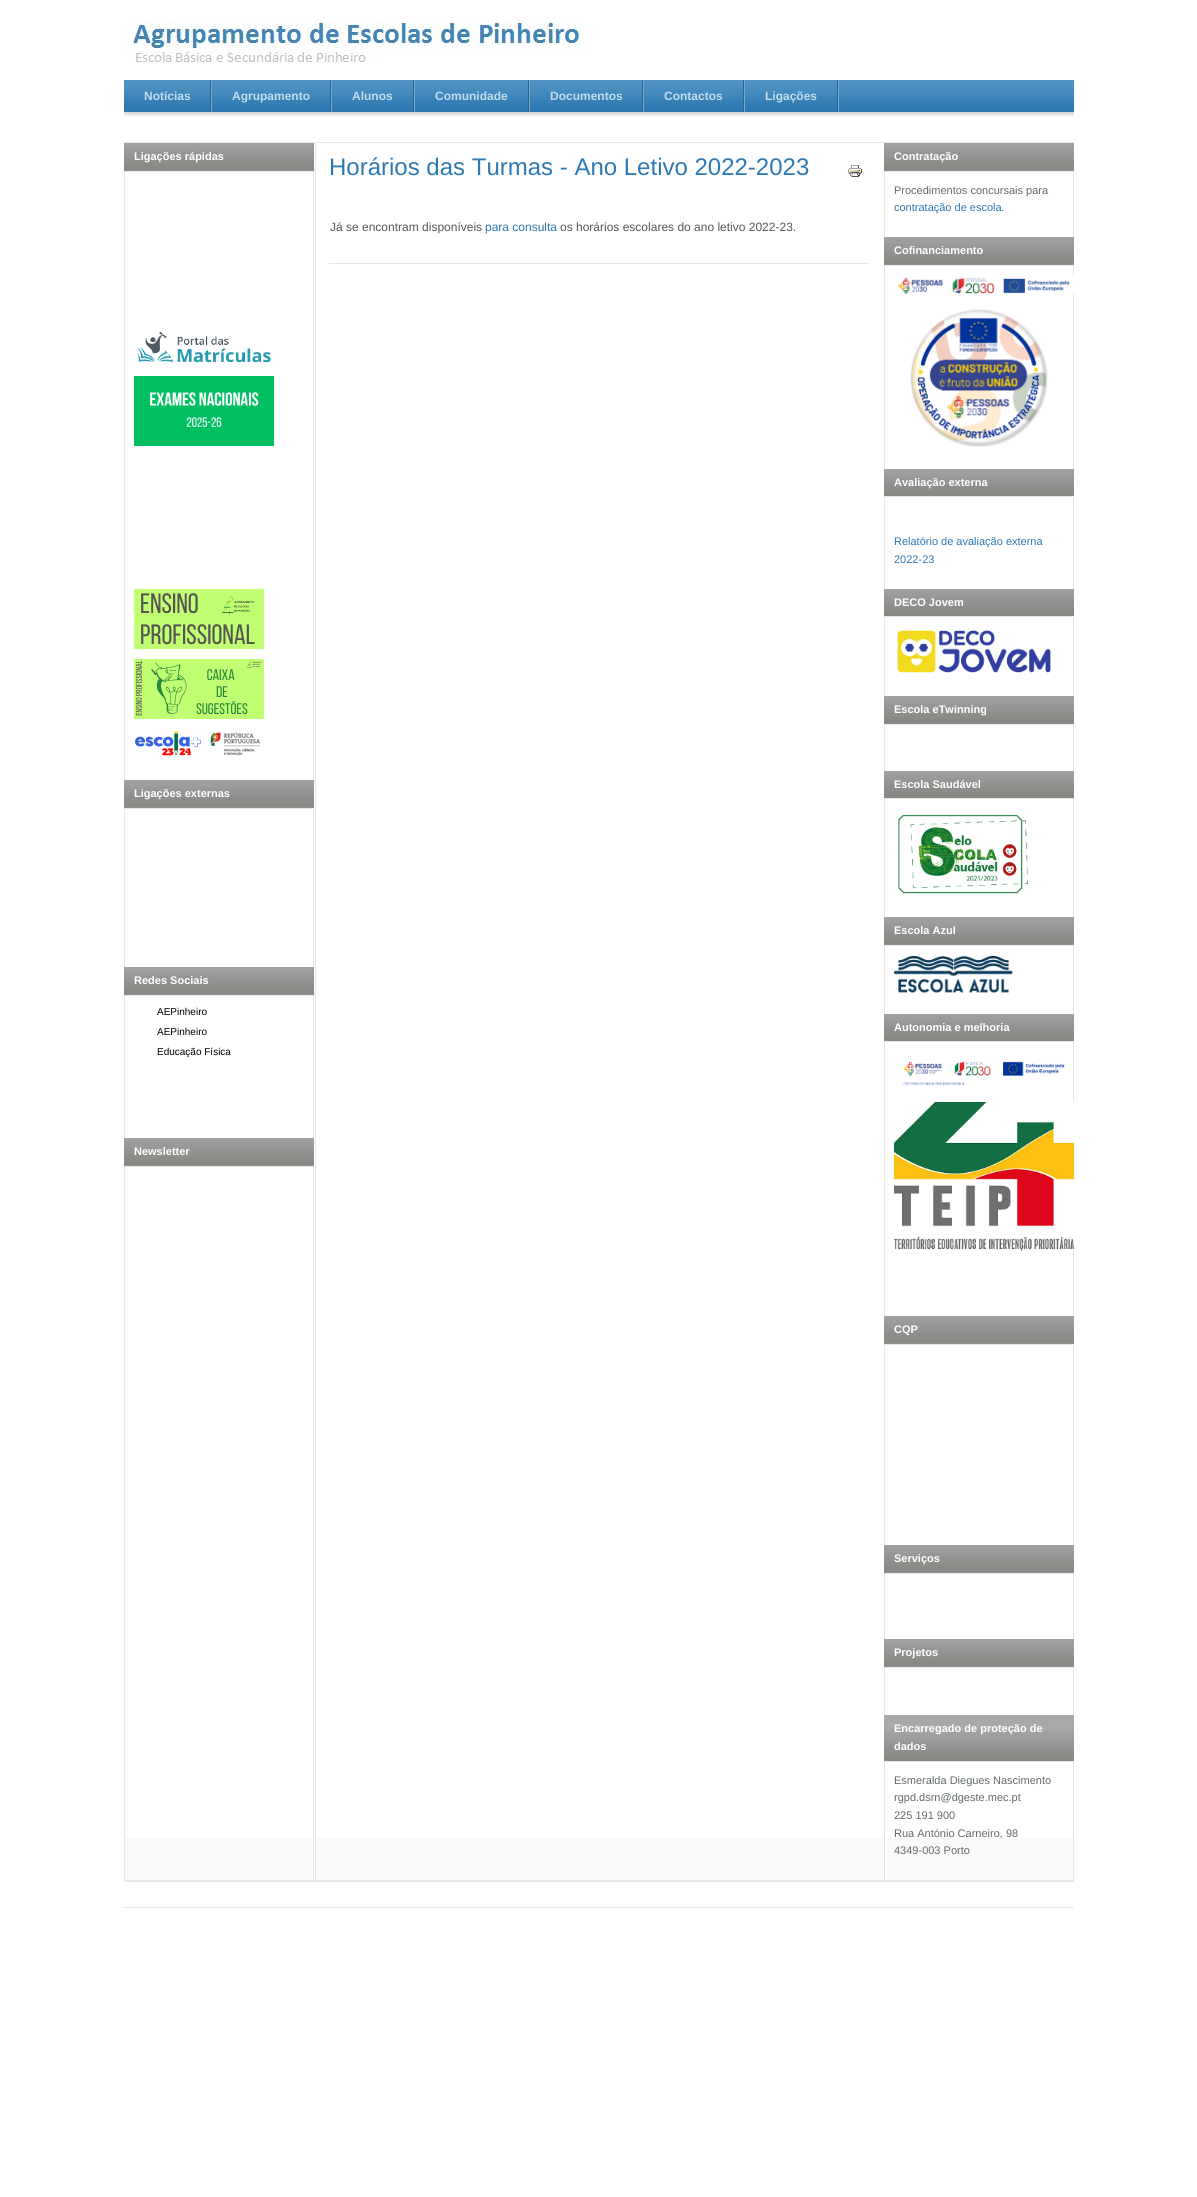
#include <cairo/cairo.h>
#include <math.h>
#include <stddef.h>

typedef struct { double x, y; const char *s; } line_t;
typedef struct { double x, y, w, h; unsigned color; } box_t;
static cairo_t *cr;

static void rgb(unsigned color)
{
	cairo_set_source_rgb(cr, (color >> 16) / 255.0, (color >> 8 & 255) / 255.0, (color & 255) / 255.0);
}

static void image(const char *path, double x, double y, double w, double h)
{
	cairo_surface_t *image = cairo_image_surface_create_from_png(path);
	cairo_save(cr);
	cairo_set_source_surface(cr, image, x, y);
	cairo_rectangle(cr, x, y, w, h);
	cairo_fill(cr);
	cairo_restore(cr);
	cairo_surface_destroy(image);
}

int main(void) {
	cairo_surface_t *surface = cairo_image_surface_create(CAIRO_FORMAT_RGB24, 1197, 2197);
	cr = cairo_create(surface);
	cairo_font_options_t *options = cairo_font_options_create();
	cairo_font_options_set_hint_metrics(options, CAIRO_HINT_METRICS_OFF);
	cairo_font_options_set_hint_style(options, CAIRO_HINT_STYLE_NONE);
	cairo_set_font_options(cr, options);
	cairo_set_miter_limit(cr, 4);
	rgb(0xffffff);
	cairo_paint(cr);
	image("img/1.png", 124, 22, 464, 43);
	image("img/2.png", 124, 112, 950, 5);
	rgb(0x2c79b3);
	cairo_rectangle(cr, 124, 107, 950, 5);
	cairo_fill(cr);
	image("img/3.png", 124, 80, 950, 27);
	{
		static const box_t items[] = {
			{211, 80, 1, 32, 0x75aad2},
			{210, 80, 1, 32, 0x2b6484},
			{331, 80, 1, 32, 0x75aad2},
			{330, 80, 1, 32, 0x2b6484},
			{414, 80, 1, 32, 0x75aad2},
			{413, 80, 1, 32, 0x2b6484},
			{529, 80, 1, 32, 0x75aad2},
			{528, 80, 1, 32, 0x2b6484},
			{643, 80, 1, 32, 0x75aad2},
			{642, 80, 1, 32, 0x2b6484},
			{744, 80, 1, 32, 0x75aad2},
			{743, 80, 1, 32, 0x2b6484},
			{838, 80, 1, 32, 0x75aad2},
			{837, 80, 1, 32, 0x2b6484},
			{125, 1838, 948, 42, 0xf9f9f9},
		};
		for (size_t i = 0; i < sizeof items / sizeof *items; i++) {
			rgb(items[i].color);
			cairo_rectangle(cr, items[i].x, items[i].y, items[i].w, items[i].h);
			cairo_fill(cr);
		}
	}
	image("img/4.png", 124, 143, 192, 1737);
	rgb(0xe7e8e6);
	cairo_rectangle(cr, 124, 142, 950, 1);
	cairo_fill(cr);
	cairo_rectangle(cr, 124, 1880, 950, 2);
	cairo_fill(cr);
	image("img/5.png", 883, 143, 191, 1737);
	image("img/6.png", 124, 143, 190, 28);
	cairo_rectangle(cr, 124, 171, 190, 1);
	cairo_fill(cr);
	image("img/7.png", 137, 331, 134, 32);
	image("img/8.png", 134, 376, 140, 70);
	image("img/9.png", 134, 589, 130, 60);
	image("img/10.png", 134, 659, 130, 60);
	image("img/11.png", 135, 731, 125, 25);
	image("img/6.png", 124, 780, 190, 28);
	cairo_rectangle(cr, 124, 808, 190, 1);
	cairo_fill(cr);
	image("img/6.png", 124, 967, 190, 28);
	cairo_rectangle(cr, 124, 995, 190, 1);
	cairo_fill(cr);
	image("img/6.png", 124, 1138, 190, 28);
	cairo_rectangle(cr, 124, 1166, 190, 1);
	cairo_fill(cr);
	image("img/12.png", 848, 165, 14, 12);
	cairo_rectangle(cr, 329, 263, 540, 1);
	cairo_fill(cr);
	image("img/6.png", 884, 143, 190, 28);
	cairo_rectangle(cr, 884, 171, 190, 1);
	cairo_fill(cr);
	image("img/6.png", 884, 237, 190, 28);
	cairo_rectangle(cr, 884, 265, 190, 1);
	cairo_fill(cr);
	image("img/13.png", 897, 276, 177, 18);
	image("img/14.png", 910, 309, 138, 138);
	image("img/15.png", 884, 469, 190, 27);
	cairo_rectangle(cr, 884, 496, 190, 1);
	cairo_fill(cr);
	image("img/16.png", 884, 589, 190, 27);
	cairo_rectangle(cr, 884, 616, 190, 1);
	cairo_fill(cr);
	image("img/17.png", 897, 630, 154, 43);
	image("img/6.png", 884, 696, 190, 28);
	cairo_rectangle(cr, 884, 724, 190, 1);
	cairo_fill(cr);
	image("img/16.png", 884, 771, 190, 27);
	cairo_rectangle(cr, 884, 798, 190, 1);
	cairo_fill(cr);
	image("img/18.png", 898, 815, 130, 79);
	image("img/6.png", 884, 917, 190, 28);
	cairo_rectangle(cr, 884, 945, 190, 1);
	cairo_fill(cr);
	image("img/19.png", 894, 956, 119, 37);
	image("img/16.png", 884, 1014, 190, 27);
	cairo_rectangle(cr, 884, 1041, 190, 1);
	cairo_fill(cr);
	image("img/20.png", 903, 1061, 162, 25);
	image("img/21.png", 894, 1102, 180, 149);
	image("img/6.png", 884, 1316, 190, 28);
	cairo_rectangle(cr, 884, 1344, 190, 1);
	cairo_fill(cr);
	image("img/6.png", 884, 1545, 190, 28);
	cairo_rectangle(cr, 884, 1573, 190, 1);
	cairo_fill(cr);
	image("img/6.png", 884, 1639, 190, 28);
	cairo_rectangle(cr, 884, 1667, 190, 1);
	cairo_fill(cr);
	rgb(0xa8a8a8);
	cairo_rectangle(cr, 884, 1715, 190, 15);
	cairo_fill(cr);
	image("img/22.png", 884, 1730, 190, 31);
	rgb(0xe7e8e6);
	cairo_rectangle(cr, 884, 1761, 190, 1);
	cairo_fill(cr);
	cairo_rectangle(cr, 124, 1907, 950, 1);
	cairo_fill(cr);
	cairo_select_font_face(cr, "Liberation Sans", CAIRO_FONT_SLANT_NORMAL, CAIRO_FONT_WEIGHT_BOLD);
	cairo_set_font_size(cr, 12);
	rgb(0xc3dbed);
	{
		static const line_t items[] = {
			{144, 100, "Notícias"},
			{232, 100, "Agrupamento"},
			{352, 100, "Alunos"},
			{435, 100, "Comunidade"},
			{550, 100, "Documentos"},
			{664, 100, "Contactos"},
			{765, 100, "Ligações"},
		};
		for (size_t i = 0; i < sizeof items / sizeof *items; i++) {
			cairo_move_to(cr, items[i].x, items[i].y);
			cairo_show_text(cr, items[i].s);
		}
	}
	cairo_set_font_size(cr, 11);
	rgb(0xffffff);
	{
		static const line_t items[] = {
			{134, 160, "Ligações rápidas"},
			{134, 797, "Ligações externas"},
			{134, 984, "Redes Sociais"},
		};
		for (size_t i = 0; i < sizeof items / sizeof *items; i++) {
			cairo_move_to(cr, items[i].x, items[i].y);
			cairo_show_text(cr, items[i].s);
		}
	}
	cairo_select_font_face(cr, "Liberation Sans", CAIRO_FONT_SLANT_NORMAL, CAIRO_FONT_WEIGHT_NORMAL);
	cairo_set_font_size(cr, 10);
	rgb(0x000000);
	{
		static const line_t items[] = {
			{157, 1015, "AEPinheiro"},
			{157, 1035, "AEPinheiro"},
			{157, 1055, "Educação Física"},
		};
		for (size_t i = 0; i < sizeof items / sizeof *items; i++) {
			cairo_move_to(cr, items[i].x, items[i].y);
			cairo_show_text(cr, items[i].s);
		}
	}
	cairo_select_font_face(cr, "Liberation Sans", CAIRO_FONT_SLANT_NORMAL, CAIRO_FONT_WEIGHT_BOLD);
	cairo_set_font_size(cr, 11);
	rgb(0xffffff);
	cairo_move_to(cr, 134, 1155);
	cairo_show_text(cr, "Newsletter");
	cairo_select_font_face(cr, "Liberation Sans", CAIRO_FONT_SLANT_NORMAL, CAIRO_FONT_WEIGHT_NORMAL);
	cairo_set_font_size(cr, 24);
	rgb(0x2c79b3);
	cairo_move_to(cr, 329, 175);
	cairo_show_text(cr, "Horários das Turmas - Ano Letivo 2022-2023");
	cairo_set_font_size(cr, 12);
	rgb(0x515756);
	cairo_move_to(cr, 330, 231);
	cairo_show_text(cr, "Já se encontram disponíveis");
	rgb(0x2c79b3);
	cairo_move_to(cr, 485, 231);
	cairo_show_text(cr, "para consulta");
	rgb(0x515756);
	cairo_move_to(cr, 560, 231);
	cairo_show_text(cr, "os horários escolares do ano letivo 2022-23.");
	cairo_select_font_face(cr, "Liberation Sans", CAIRO_FONT_SLANT_NORMAL, CAIRO_FONT_WEIGHT_BOLD);
	cairo_set_font_size(cr, 11);
	rgb(0xffffff);
	cairo_move_to(cr, 894, 160);
	cairo_show_text(cr, "Contratação");
	cairo_select_font_face(cr, "Liberation Sans", CAIRO_FONT_SLANT_NORMAL, CAIRO_FONT_WEIGHT_NORMAL);
	rgb(0x626a69);
	cairo_move_to(cr, 894, 194);
	cairo_show_text(cr, "Procedimentos concursais para");
	rgb(0x2c79b3);
	cairo_move_to(cr, 894, 211);
	cairo_show_text(cr, "contratação de escola");
	rgb(0x626a69);
	cairo_move_to(cr, 1001, 211);
	cairo_show_text(cr, ".");
	cairo_select_font_face(cr, "Liberation Sans", CAIRO_FONT_SLANT_NORMAL, CAIRO_FONT_WEIGHT_BOLD);
	rgb(0xffffff);
	cairo_move_to(cr, 894, 254);
	cairo_show_text(cr, "Cofinanciamento");
	cairo_move_to(cr, 894, 486);
	cairo_show_text(cr, "Avaliação externa");
	cairo_select_font_face(cr, "Liberation Sans", CAIRO_FONT_SLANT_NORMAL, CAIRO_FONT_WEIGHT_NORMAL);
	rgb(0x2c79b3);
	cairo_move_to(cr, 894, 545);
	cairo_show_text(cr, "Relatório de avaliação externa");
	cairo_move_to(cr, 894, 563);
	cairo_show_text(cr, "2022-23");
	cairo_select_font_face(cr, "Liberation Sans", CAIRO_FONT_SLANT_NORMAL, CAIRO_FONT_WEIGHT_BOLD);
	rgb(0xffffff);
	{
		static const line_t items[] = {
			{894, 606, "DECO Jovem"},
			{894, 713, "Escola eTwinning"},
			{894, 788, "Escola Saudável"},
			{894, 934, "Escola Azul"},
			{894, 1031, "Autonomia e melhoria"},
			{894, 1333, "CQP"},
			{894, 1562, "Serviços"},
			{894, 1656, "Projetos"},
			{894, 1732, "Encarregado de proteção de"},
			{894, 1750, "dados"},
		};
		for (size_t i = 0; i < sizeof items / sizeof *items; i++) {
			cairo_move_to(cr, items[i].x, items[i].y);
			cairo_show_text(cr, items[i].s);
		}
	}
	cairo_select_font_face(cr, "Liberation Sans", CAIRO_FONT_SLANT_NORMAL, CAIRO_FONT_WEIGHT_NORMAL);
	rgb(0x626a69);
	{
		static const line_t items[] = {
			{894, 1784, "Esmeralda Diegues Nascimento"},
			{894, 1801, "rgpd.dsrn@dgeste.mec.pt"},
			{894, 1819, "225 191 900"},
			{894, 1837, "Rua António Carneiro, 98"},
			{894, 1854, "4349-003 Porto"},
		};
		for (size_t i = 0; i < sizeof items / sizeof *items; i++) {
			cairo_move_to(cr, items[i].x, items[i].y);
			cairo_show_text(cr, items[i].s);
		}
	}
	cairo_surface_write_to_png(surface, "page.png");
	cairo_font_options_destroy(options);
	cairo_destroy(cr);
	cairo_surface_destroy(surface);
	return 0;
}
